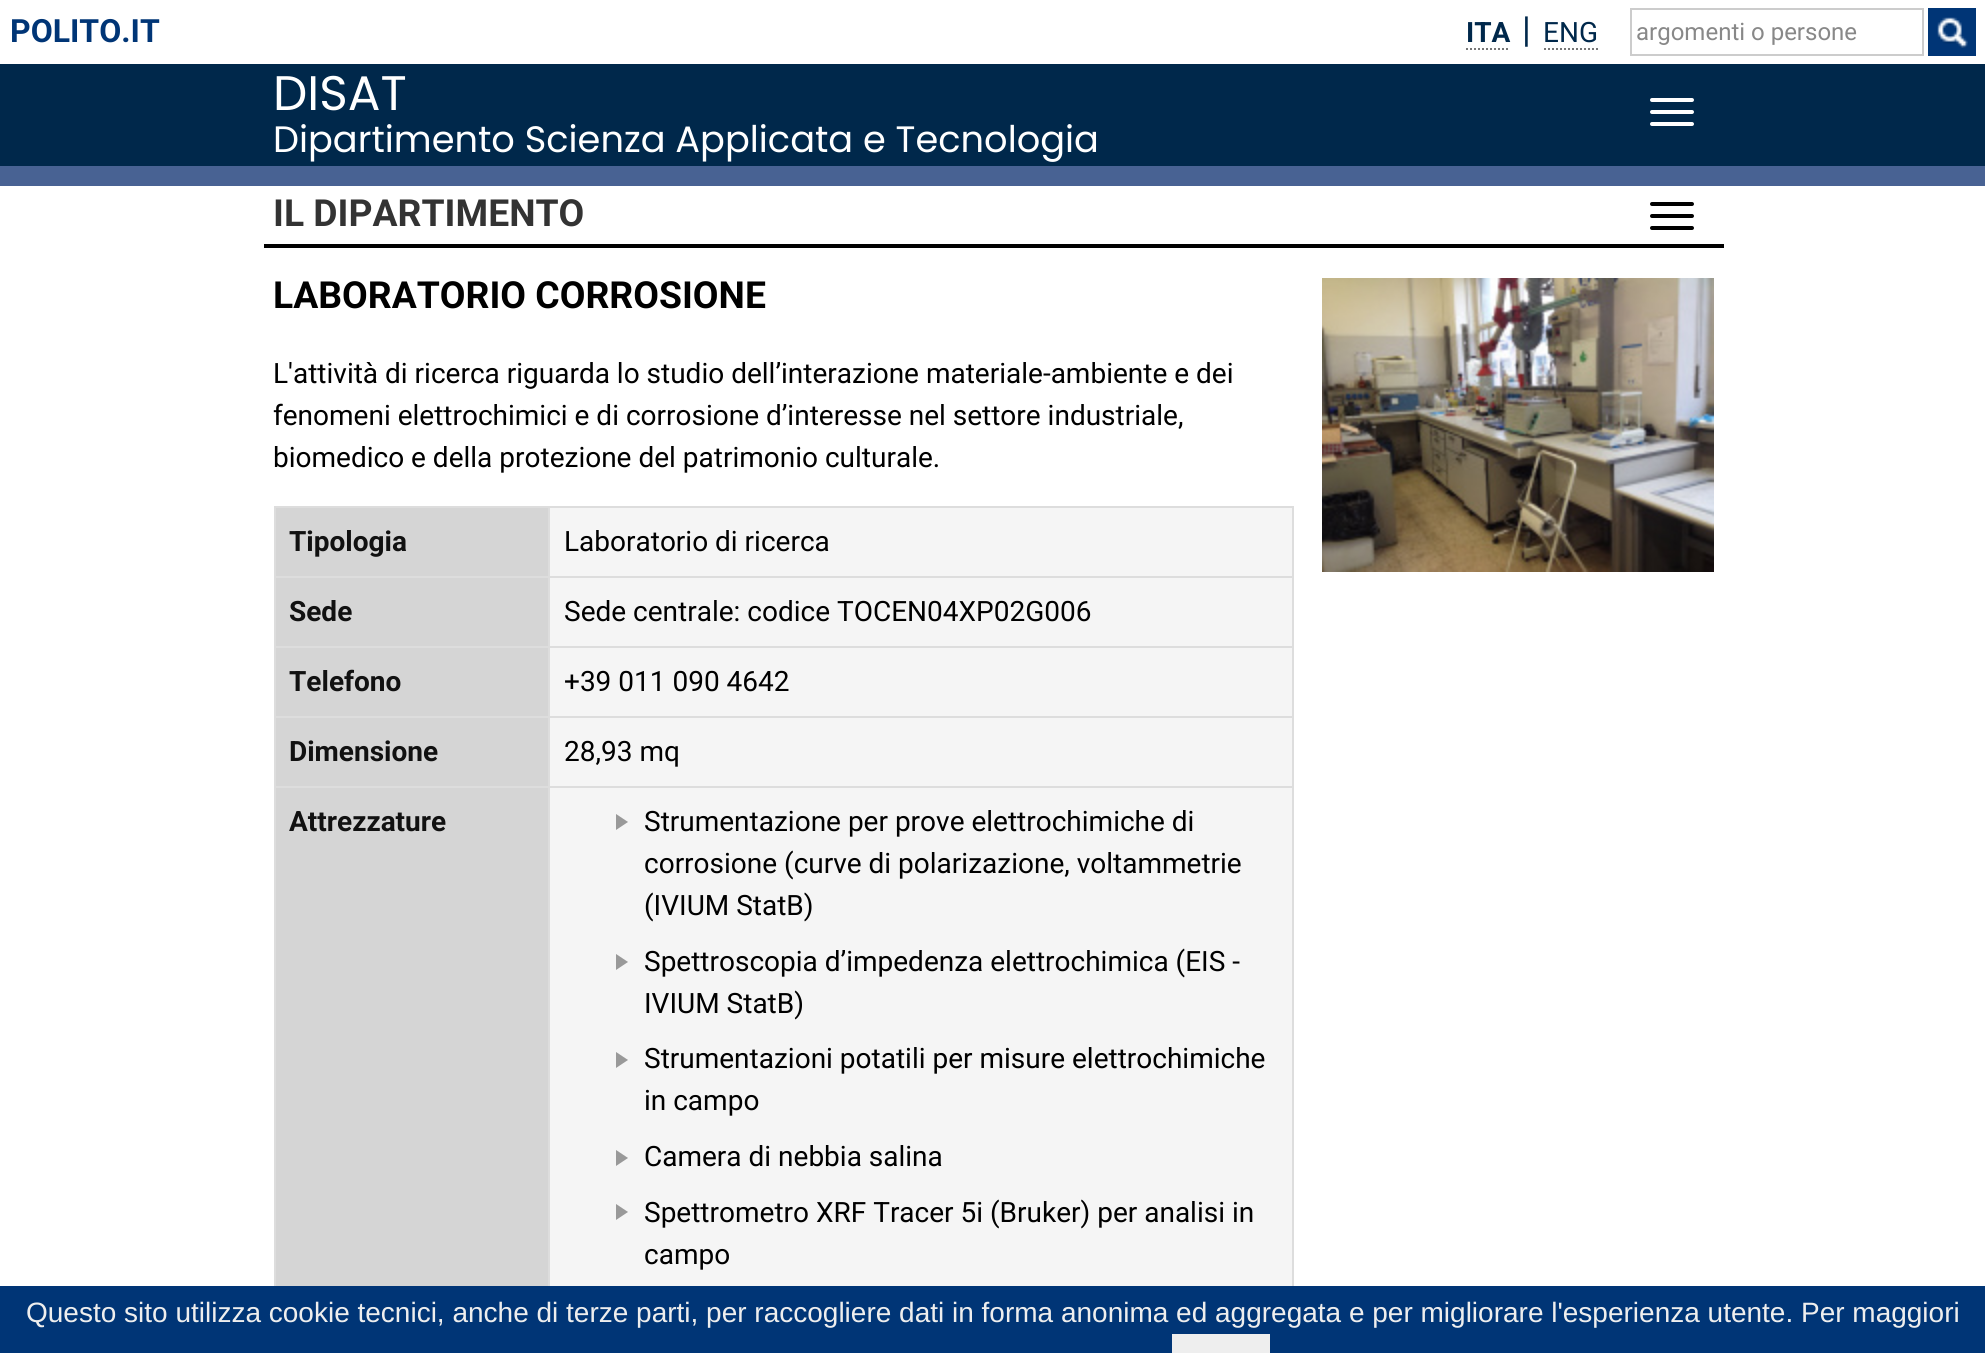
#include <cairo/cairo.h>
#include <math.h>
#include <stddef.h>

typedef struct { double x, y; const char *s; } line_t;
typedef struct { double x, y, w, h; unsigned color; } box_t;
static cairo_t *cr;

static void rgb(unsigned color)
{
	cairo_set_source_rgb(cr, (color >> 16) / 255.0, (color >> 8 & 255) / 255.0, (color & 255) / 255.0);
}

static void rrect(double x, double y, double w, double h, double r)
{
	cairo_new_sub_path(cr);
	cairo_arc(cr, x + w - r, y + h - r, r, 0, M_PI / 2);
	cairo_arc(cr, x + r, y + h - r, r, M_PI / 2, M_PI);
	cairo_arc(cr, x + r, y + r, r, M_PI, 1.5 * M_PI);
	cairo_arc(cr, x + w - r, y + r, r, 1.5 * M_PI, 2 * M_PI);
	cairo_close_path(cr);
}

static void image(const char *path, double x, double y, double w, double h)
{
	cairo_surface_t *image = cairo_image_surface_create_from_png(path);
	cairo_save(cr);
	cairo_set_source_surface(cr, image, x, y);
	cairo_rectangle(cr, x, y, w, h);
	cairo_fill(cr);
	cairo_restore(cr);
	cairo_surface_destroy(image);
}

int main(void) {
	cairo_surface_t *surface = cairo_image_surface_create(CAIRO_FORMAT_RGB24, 1985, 1353);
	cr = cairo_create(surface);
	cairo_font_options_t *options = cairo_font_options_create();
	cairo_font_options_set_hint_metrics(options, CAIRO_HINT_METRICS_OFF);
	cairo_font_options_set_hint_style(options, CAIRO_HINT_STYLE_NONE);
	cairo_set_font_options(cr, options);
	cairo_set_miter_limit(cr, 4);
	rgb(0xffffff);
	cairo_paint(cr);
	cairo_new_path(cr);
	cairo_move_to(cr, 1466, 49);
	cairo_line_to(cr, 1510, 49);
	rgb(0x777777);
	cairo_set_dash(cr, (double[]){2, 2}, 2, 0);
	cairo_stroke(cr);
	cairo_new_path(cr);
	cairo_move_to(cr, 1544, 49);
	cairo_line_to(cr, 1598, 49);
	cairo_stroke(cr);
	cairo_rectangle(cr, 1631, 9, 292, 46);
	rgb(0xcccccc);
	cairo_set_dash(cr, NULL, 0, 0);
	cairo_stroke(cr);
	rgb(0x003576);
	cairo_rectangle(cr, 1928, 8, 48, 48);
	cairo_fill(cr);
	image("img/1.png", 1937, 17, 31, 31);
	rgb(0x00284b);
	cairo_rectangle(cr, 0, 64, 1985, 102);
	cairo_fill(cr);
	rgb(0xffffff);
	rrect(1650, 98, 44, 4, 2);
	cairo_fill(cr);
	rrect(1650, 110, 44, 4, 2);
	cairo_fill(cr);
	rrect(1650, 122, 44, 4, 2);
	cairo_fill(cr);
	rgb(0x486293);
	cairo_rectangle(cr, 0, 166, 1985, 20);
	cairo_fill(cr);
	rgb(0x000000);
	cairo_rectangle(cr, 264, 244, 1460, 4);
	cairo_fill(cr);
	rrect(1650, 202, 44, 4, 2);
	cairo_fill(cr);
	rrect(1650, 214, 44, 4, 2);
	cairo_fill(cr);
	rrect(1650, 226, 44, 4, 2);
	cairo_fill(cr);
	image("img/2.png", 1322, 278, 392, 294);
	{
		static const box_t items[] = {
			{550, 508, 742, 778, 0xf5f5f5},
			{274, 506, 1020, 2, 0xdddddd},
			{274, 506, 2, 780, 0xdddddd},
			{276, 508, 272, 68, 0xd5d5d5},
			{274, 576, 276, 2, 0xdddddd},
			{274, 646, 276, 2, 0xdddddd},
			{274, 716, 276, 2, 0xdddddd},
			{274, 786, 276, 2, 0xdddddd},
			{548, 786, 2, 500, 0xdddddd},
			{1292, 506, 2, 780, 0xdddddd},
			{548, 786, 746, 2, 0xdddddd},
			{548, 716, 2, 72, 0xdddddd},
			{548, 716, 746, 2, 0xdddddd},
			{548, 646, 2, 72, 0xdddddd},
			{548, 646, 746, 2, 0xdddddd},
			{548, 576, 2, 72, 0xdddddd},
			{548, 576, 746, 2, 0xdddddd},
			{548, 506, 2, 72, 0xdddddd},
			{276, 578, 272, 68, 0xd5d5d5},
			{276, 648, 272, 68, 0xd5d5d5},
			{276, 718, 272, 68, 0xd5d5d5},
			{276, 788, 272, 498, 0xd5d5d5},
		};
		for (size_t i = 0; i < sizeof items / sizeof *items; i++) {
			rgb(items[i].color);
			cairo_rectangle(cr, items[i].x, items[i].y, items[i].w, items[i].h);
			cairo_fill(cr);
		}
	}
	rgb(0x999999);
	cairo_new_path(cr);
	cairo_move_to(cr, 616, 830);
	cairo_line_to(cr, 616, 814);
	cairo_line_to(cr, 628, 822);
	cairo_close_path(cr);
	cairo_fill(cr);
	cairo_new_path(cr);
	cairo_move_to(cr, 616, 970);
	cairo_line_to(cr, 616, 954);
	cairo_line_to(cr, 628, 962);
	cairo_close_path(cr);
	cairo_fill(cr);
	cairo_new_path(cr);
	cairo_move_to(cr, 616, 1068);
	cairo_line_to(cr, 616, 1052);
	cairo_line_to(cr, 628, 1060);
	cairo_close_path(cr);
	cairo_fill(cr);
	cairo_new_path(cr);
	cairo_move_to(cr, 616, 1166);
	cairo_line_to(cr, 616, 1150);
	cairo_line_to(cr, 628, 1158);
	cairo_close_path(cr);
	cairo_fill(cr);
	cairo_new_path(cr);
	cairo_move_to(cr, 616, 1220);
	cairo_line_to(cr, 616, 1204);
	cairo_line_to(cr, 628, 1212);
	cairo_close_path(cr);
	cairo_fill(cr);
	rgb(0x003576);
	cairo_rectangle(cr, 0, 1286, 1985, 67);
	cairo_fill(cr);
	rgb(0xeeeeee);
	cairo_rectangle(cr, 1172, 1334, 98, 19);
	cairo_fill(cr);
	cairo_select_font_face(cr, "Roboto", CAIRO_FONT_SLANT_NORMAL, CAIRO_FONT_WEIGHT_BOLD);
	cairo_set_font_size(cr, 32);
	rgb(0x003576);
	cairo_move_to(cr, 10, 42);
	cairo_show_text(cr, "POLITO.IT");
	cairo_set_font_size(cr, 28);
	rgb(0x00284b);
	cairo_move_to(cr, 1466, 42);
	cairo_show_text(cr, "ITA");
	cairo_select_font_face(cr, "Roboto", CAIRO_FONT_SLANT_NORMAL, CAIRO_FONT_WEIGHT_NORMAL);
	cairo_set_font_size(cr, 36);
	cairo_move_to(cr, 1522, 42);
	cairo_show_text(cr, "|");
	cairo_set_font_size(cr, 28);
	cairo_move_to(cr, 1543, 42);
	cairo_show_text(cr, "ENG");
	cairo_set_font_size(cr, 24);
	rgb(0x888888);
	cairo_move_to(cr, 1636, 40);
	cairo_show_text(cr, "argomenti o persone");
	cairo_select_font_face(cr, "Poppins", CAIRO_FONT_SLANT_NORMAL, CAIRO_FONT_WEIGHT_NORMAL);
	cairo_set_font_size(cr, 48.5);
	rgb(0xffffff);
	cairo_move_to(cr, 273, 110);
	cairo_show_text(cr, "DISAT");
	cairo_set_font_size(cr, 36.75);
	cairo_move_to(cr, 273, 152);
	cairo_show_text(cr, "Dipartimento Scienza Applicata e Tecnologia");
	cairo_select_font_face(cr, "Roboto", CAIRO_FONT_SLANT_NORMAL, CAIRO_FONT_WEIGHT_BOLD);
	cairo_set_font_size(cr, 37.3);
	rgb(0x333333);
	cairo_move_to(cr, 273, 226);
	cairo_show_text(cr, "IL DIPARTIMENTO");
	rgb(0x000000);
	cairo_move_to(cr, 273, 308);
	cairo_show_text(cr, "LABORATORIO CORROSIONE");
	cairo_select_font_face(cr, "Roboto", CAIRO_FONT_SLANT_NORMAL, CAIRO_FONT_WEIGHT_NORMAL);
	cairo_set_font_size(cr, 28);
	{
		static const line_t items[] = {
			{273, 383, "L'attività di ricerca riguarda lo studio dell’interazione materiale-ambiente e dei"},
			{273, 425, "fenomeni elettrochimici e di corrosione d’interesse nel settore industriale,"},
			{273, 467, "biomedico e della protezione del patrimonio culturale."},
		};
		for (size_t i = 0; i < sizeof items / sizeof *items; i++) {
			cairo_move_to(cr, items[i].x, items[i].y);
			cairo_show_text(cr, items[i].s);
		}
	}
	cairo_select_font_face(cr, "Roboto", CAIRO_FONT_SLANT_NORMAL, CAIRO_FONT_WEIGHT_BOLD);
	rgb(0x111111);
	cairo_move_to(cr, 289, 551);
	cairo_show_text(cr, "Tipologia");
	cairo_select_font_face(cr, "Roboto", CAIRO_FONT_SLANT_NORMAL, CAIRO_FONT_WEIGHT_NORMAL);
	rgb(0x000000);
	cairo_move_to(cr, 564, 551);
	cairo_show_text(cr, "Laboratorio di ricerca");
	cairo_select_font_face(cr, "Roboto", CAIRO_FONT_SLANT_NORMAL, CAIRO_FONT_WEIGHT_BOLD);
	rgb(0x111111);
	cairo_move_to(cr, 289, 621);
	cairo_show_text(cr, "Sede");
	cairo_select_font_face(cr, "Roboto", CAIRO_FONT_SLANT_NORMAL, CAIRO_FONT_WEIGHT_NORMAL);
	rgb(0x000000);
	cairo_move_to(cr, 564, 621);
	cairo_show_text(cr, "Sede centrale: codice TOCEN04XP02G006");
	cairo_select_font_face(cr, "Roboto", CAIRO_FONT_SLANT_NORMAL, CAIRO_FONT_WEIGHT_BOLD);
	rgb(0x111111);
	cairo_move_to(cr, 289, 691);
	cairo_show_text(cr, "Telefono");
	cairo_select_font_face(cr, "Roboto", CAIRO_FONT_SLANT_NORMAL, CAIRO_FONT_WEIGHT_NORMAL);
	rgb(0x000000);
	cairo_move_to(cr, 564, 691);
	cairo_show_text(cr, "+39 011 090 4642");
	cairo_select_font_face(cr, "Roboto", CAIRO_FONT_SLANT_NORMAL, CAIRO_FONT_WEIGHT_BOLD);
	rgb(0x111111);
	cairo_move_to(cr, 289, 761);
	cairo_show_text(cr, "Dimensione");
	cairo_select_font_face(cr, "Roboto", CAIRO_FONT_SLANT_NORMAL, CAIRO_FONT_WEIGHT_NORMAL);
	rgb(0x000000);
	cairo_move_to(cr, 564, 761);
	cairo_show_text(cr, "28,93 mq");
	cairo_select_font_face(cr, "Roboto", CAIRO_FONT_SLANT_NORMAL, CAIRO_FONT_WEIGHT_BOLD);
	rgb(0x111111);
	cairo_move_to(cr, 289, 831);
	cairo_show_text(cr, "Attrezzature");
	cairo_select_font_face(cr, "Roboto", CAIRO_FONT_SLANT_NORMAL, CAIRO_FONT_WEIGHT_NORMAL);
	rgb(0x000000);
	{
		static const line_t items[] = {
			{644, 831, "Strumentazione per prove elettrochimiche di"},
			{644, 873, "corrosione (curve di polarizazione, voltammetrie"},
			{644, 915, "(IVIUM StatB)"},
			{644, 971, "Spettroscopia d’impedenza elettrochimica (EIS -"},
			{644, 1013, "IVIUM StatB)"},
			{644, 1068, "Strumentazioni potatili per misure elettrochimiche"},
			{644, 1110, "in campo"},
			{644, 1166, "Camera di nebbia salina"},
			{644, 1222, "Spettrometro XRF Tracer 5i (Bruker) per analisi in"},
			{644, 1264, "campo"},
		};
		for (size_t i = 0; i < sizeof items / sizeof *items; i++) {
			cairo_move_to(cr, items[i].x, items[i].y);
			cairo_show_text(cr, items[i].s);
		}
	}
	cairo_select_font_face(cr, "Liberation Sans", CAIRO_FONT_SLANT_NORMAL, CAIRO_FONT_WEIGHT_NORMAL);
	rgb(0xeeeeee);
	cairo_move_to(cr, 26, 1322);
	cairo_show_text(cr, "Questo sito utilizza cookie tecnici, anche di terze parti, per raccogliere dati in forma anonima ed aggregata e per migliorare l'esperienza utente. Per maggiori");
	cairo_surface_write_to_png(surface, "page.png");
	cairo_font_options_destroy(options);
	cairo_destroy(cr);
	cairo_surface_destroy(surface);
	return 0;
}
